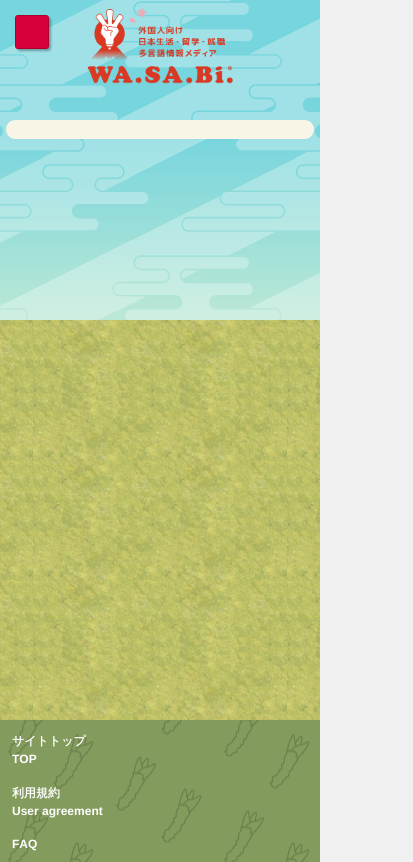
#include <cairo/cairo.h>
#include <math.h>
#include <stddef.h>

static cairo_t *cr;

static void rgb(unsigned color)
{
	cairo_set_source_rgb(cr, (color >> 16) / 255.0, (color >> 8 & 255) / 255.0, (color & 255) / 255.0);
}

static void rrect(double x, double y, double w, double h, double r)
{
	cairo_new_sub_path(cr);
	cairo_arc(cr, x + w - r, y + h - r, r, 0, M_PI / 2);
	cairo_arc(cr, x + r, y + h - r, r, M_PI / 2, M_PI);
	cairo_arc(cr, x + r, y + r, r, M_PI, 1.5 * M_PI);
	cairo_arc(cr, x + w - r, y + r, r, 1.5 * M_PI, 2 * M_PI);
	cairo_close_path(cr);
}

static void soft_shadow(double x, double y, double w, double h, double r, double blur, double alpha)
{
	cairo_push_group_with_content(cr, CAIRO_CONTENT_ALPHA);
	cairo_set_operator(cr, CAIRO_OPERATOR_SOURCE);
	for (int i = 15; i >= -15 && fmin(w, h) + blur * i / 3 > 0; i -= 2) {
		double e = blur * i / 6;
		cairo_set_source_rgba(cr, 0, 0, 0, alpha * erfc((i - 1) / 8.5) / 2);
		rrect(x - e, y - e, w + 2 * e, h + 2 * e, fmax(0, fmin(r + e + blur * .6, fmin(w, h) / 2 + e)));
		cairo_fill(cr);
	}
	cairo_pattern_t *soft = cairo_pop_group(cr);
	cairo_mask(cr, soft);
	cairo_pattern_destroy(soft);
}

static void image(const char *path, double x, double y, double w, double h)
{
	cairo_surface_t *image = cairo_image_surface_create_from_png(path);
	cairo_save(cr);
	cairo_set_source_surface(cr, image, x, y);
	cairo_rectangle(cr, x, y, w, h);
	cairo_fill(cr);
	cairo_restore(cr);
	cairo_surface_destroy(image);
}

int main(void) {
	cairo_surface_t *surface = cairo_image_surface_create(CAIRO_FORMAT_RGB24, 413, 862);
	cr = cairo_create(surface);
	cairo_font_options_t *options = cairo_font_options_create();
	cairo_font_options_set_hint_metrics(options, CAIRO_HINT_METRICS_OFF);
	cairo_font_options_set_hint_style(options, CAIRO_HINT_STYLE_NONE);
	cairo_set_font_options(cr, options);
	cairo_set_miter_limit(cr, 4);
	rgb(0xf0f0f0);
	cairo_paint(cr);
	image("img/1.png", 0, 0, 320, 648);
	rgb(0x000000);
	soft_shadow(17, 17, 34, 34, 3, 1, 0.3);
	rgb(0xd7003a);
	rrect(15, 15, 34, 34, 3);
	cairo_fill(cr);
	rrect(15.5, 15.5, 33, 33, 2.5);
	cairo_set_source_rgba(cr, 0, 0, 0, 0.2);
	cairo_set_line_width(cr, 1);
	cairo_stroke(cr);
	image("img/2.png", 87, 8, 146, 76);
	rgb(0xf8f4e6);
	rrect(6, 120, 308, 19, 9.5);
	cairo_fill(cr);
	image("img/3.png", 0, 320, 320, 400);
	rgb(0x839b5c);
	cairo_rectangle(cr, 0, 720, 320, 142);
	cairo_fill(cr);
	image("img/4.png", 8, 720, 302, 142);
	cairo_select_font_face(cr, "WenQuanYi Zen Hei", CAIRO_FONT_SLANT_NORMAL, CAIRO_FONT_WEIGHT_BOLD);
	cairo_set_font_size(cr, 12);
	rgb(0xffffff);
	cairo_move_to(cr, 12, 745);
	cairo_show_text(cr, "サイトトップ");
	cairo_select_font_face(cr, "Liberation Sans", CAIRO_FONT_SLANT_NORMAL, CAIRO_FONT_WEIGHT_BOLD);
	cairo_move_to(cr, 12, 763);
	cairo_show_text(cr, "TOP");
	cairo_select_font_face(cr, "WenQuanYi Zen Hei", CAIRO_FONT_SLANT_NORMAL, CAIRO_FONT_WEIGHT_BOLD);
	cairo_move_to(cr, 12, 797);
	cairo_show_text(cr, "利用規約");
	cairo_select_font_face(cr, "Liberation Sans", CAIRO_FONT_SLANT_NORMAL, CAIRO_FONT_WEIGHT_BOLD);
	cairo_move_to(cr, 12, 815);
	cairo_show_text(cr, "User agreement");
	cairo_move_to(cr, 12, 848);
	cairo_show_text(cr, "FAQ");
	cairo_surface_write_to_png(surface, "page.png");
	cairo_font_options_destroy(options);
	cairo_destroy(cr);
	cairo_surface_destroy(surface);
	return 0;
}
